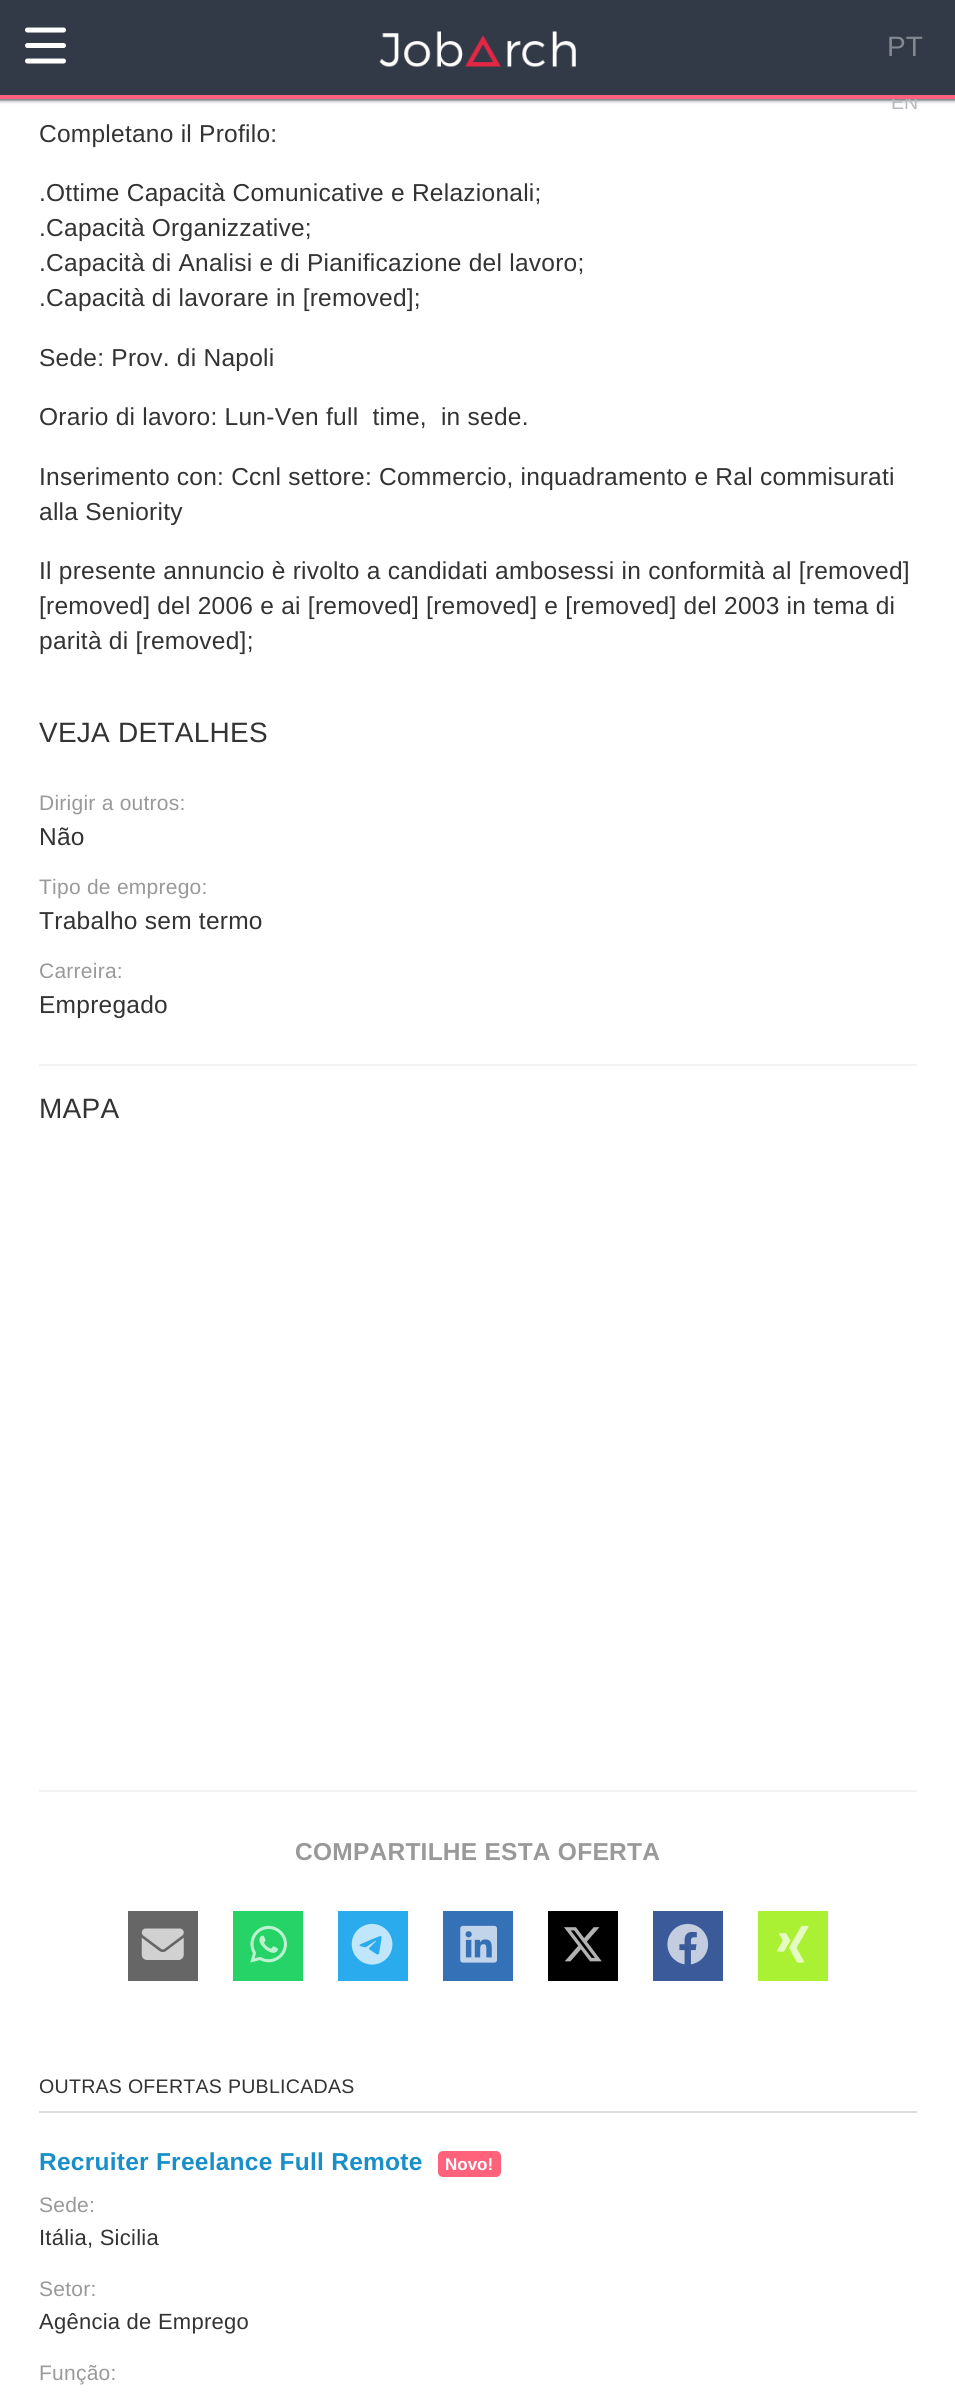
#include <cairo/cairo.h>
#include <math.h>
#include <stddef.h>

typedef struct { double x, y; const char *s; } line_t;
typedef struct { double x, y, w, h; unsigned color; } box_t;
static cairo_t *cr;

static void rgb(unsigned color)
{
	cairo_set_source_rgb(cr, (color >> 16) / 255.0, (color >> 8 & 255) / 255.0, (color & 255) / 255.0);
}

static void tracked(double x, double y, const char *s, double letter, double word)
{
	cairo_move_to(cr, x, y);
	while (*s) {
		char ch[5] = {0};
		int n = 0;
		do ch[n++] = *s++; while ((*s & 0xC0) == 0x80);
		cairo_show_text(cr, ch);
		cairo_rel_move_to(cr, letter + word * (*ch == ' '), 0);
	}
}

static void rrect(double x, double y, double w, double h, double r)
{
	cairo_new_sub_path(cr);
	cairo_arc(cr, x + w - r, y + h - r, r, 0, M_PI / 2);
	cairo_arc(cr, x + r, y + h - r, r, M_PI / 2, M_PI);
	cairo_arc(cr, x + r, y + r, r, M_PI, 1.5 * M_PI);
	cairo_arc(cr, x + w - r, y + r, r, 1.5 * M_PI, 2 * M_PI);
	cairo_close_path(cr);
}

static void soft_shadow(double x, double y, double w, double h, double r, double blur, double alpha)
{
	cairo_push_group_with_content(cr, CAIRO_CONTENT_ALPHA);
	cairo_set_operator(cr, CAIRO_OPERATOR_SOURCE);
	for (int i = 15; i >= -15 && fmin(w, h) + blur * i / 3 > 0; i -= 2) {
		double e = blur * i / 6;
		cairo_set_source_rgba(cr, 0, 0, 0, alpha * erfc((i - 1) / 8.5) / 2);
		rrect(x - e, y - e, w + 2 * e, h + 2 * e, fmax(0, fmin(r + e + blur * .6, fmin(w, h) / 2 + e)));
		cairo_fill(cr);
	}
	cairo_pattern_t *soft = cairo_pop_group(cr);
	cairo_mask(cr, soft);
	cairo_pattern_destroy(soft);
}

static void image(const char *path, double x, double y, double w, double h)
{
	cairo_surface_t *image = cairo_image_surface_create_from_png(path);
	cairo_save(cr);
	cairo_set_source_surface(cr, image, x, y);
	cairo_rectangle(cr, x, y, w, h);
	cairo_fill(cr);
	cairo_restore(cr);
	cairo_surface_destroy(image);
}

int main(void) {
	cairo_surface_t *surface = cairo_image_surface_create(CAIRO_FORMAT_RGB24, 955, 2407);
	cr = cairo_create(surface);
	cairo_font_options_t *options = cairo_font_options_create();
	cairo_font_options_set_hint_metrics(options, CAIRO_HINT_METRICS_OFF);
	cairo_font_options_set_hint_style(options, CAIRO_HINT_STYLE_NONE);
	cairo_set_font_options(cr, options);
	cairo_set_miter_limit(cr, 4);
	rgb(0xffffff);
	cairo_paint(cr);
	rgb(0x323a47);
	soft_shadow(-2, -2, 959, 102, 0, 2, 1);
	rgb(0x323a47);
	cairo_rectangle(cr, 0, 0, 955, 95);
	cairo_fill(cr);
	cairo_new_path(cr);
	cairo_move_to(cr, 27.5, 30);
	cairo_line_to(cr, 63.5, 30);
	cairo_move_to(cr, 27.5, 45.5);
	cairo_line_to(cr, 63.5, 45.5);
	cairo_move_to(cr, 63.5, 61);
	cairo_line_to(cr, 27.5, 61);
	rgb(0xffffff);
	cairo_set_line_width(cr, 5);
	cairo_set_line_cap(cr, CAIRO_LINE_CAP_ROUND);
	cairo_stroke(cr);
	image("img/1.png", 379, 31, 197, 36);
	{
		static const box_t items[] = {
			{39, 1064, 878, 2, 0xf3f3f3},
			{39, 1790, 878, 2, 0xf3f3f3},
			{128, 1911, 70, 70, 0x666666},
		};
		for (size_t i = 0; i < sizeof items / sizeof *items; i++) {
			rgb(items[i].color);
			cairo_rectangle(cr, items[i].x, items[i].y, items[i].w, items[i].h);
			cairo_fill(cr);
		}
	}
	image("img/2.png", 141, 1928, 43, 32);
	rgb(0x25d366);
	cairo_rectangle(cr, 233, 1911, 70, 70);
	cairo_fill(cr);
	image("img/3.png", 250, 1925, 37, 38);
	rgb(0x2aabee);
	cairo_rectangle(cr, 338, 1911, 70, 70);
	cairo_fill(cr);
	image("img/4.png", 351, 1923, 42, 42);
	rgb(0x3571b7);
	cairo_rectangle(cr, 443, 1911, 70, 70);
	cairo_fill(cr);
	image("img/5.png", 460, 1925, 37, 38);
	rgb(0x000000);
	cairo_rectangle(cr, 548, 1911, 70, 70);
	cairo_fill(cr);
	image("img/6.png", 564, 1927, 38, 35);
	rgb(0x3b5a99);
	cairo_rectangle(cr, 653, 1911, 70, 70);
	cairo_fill(cr);
	image("img/7.png", 667, 1923, 42, 42);
	rgb(0xaaf133);
	cairo_rectangle(cr, 758, 1911, 70, 70);
	cairo_fill(cr);
	image("img/8.png", 777, 1925, 32, 38);
	rgb(0xdddddd);
	cairo_rectangle(cr, 39, 2111, 878, 2);
	cairo_fill(cr);
	rgb(0xff637b);
	rrect(438, 2151, 63, 26, 5);
	cairo_fill(cr);
	cairo_select_font_face(cr, "Liberation Sans", CAIRO_FONT_SLANT_NORMAL, CAIRO_FONT_WEIGHT_NORMAL);
	cairo_set_font_size(cr, 28);
	rgb(0x848991);
	cairo_move_to(cr, 887, 56);
	cairo_show_text(cr, "PT");
	cairo_set_font_size(cr, 19.6);
	rgb(0xb6b9be);
	cairo_move_to(cr, 891, 109);
	cairo_show_text(cr, "EN");
	rgb(0xff637b);
	cairo_rectangle(cr, 0, 95, 955, 4);
	cairo_fill(cr);
	cairo_set_font_size(cr, 24.5);
	rgb(0x333333);
	{
		static const line_t items[] = {
			{39, 142, "Completano il Profilo:"},
			{39, 201, ".Ottime Capacità Comunicative e Relazionali;"},
			{39, 236, ".Capacità Organizzative;"},
			{39, 271, ".Capacità di Analisi e di Pianificazione del lavoro;"},
			{39, 306, ".Capacità di lavorare in [removed];"},
			{39, 366, "Sede: Prov. di Napoli"},
			{39, 425, "Orario di lavoro: Lun-Ven full  time,  in sede."},
			{39, 485, "Inserimento con: Ccnl settore: Commercio, inquadramento e Ral commisurati"},
			{39, 520, "alla Seniority"},
			{39, 579, "Il presente annuncio è rivolto a candidati ambosessi in conformità al [removed]"},
			{39, 614, "[removed] del 2006 e ai [removed] [removed] e [removed] del 2003 in tema di"},
			{39, 649, "parità di [removed];"},
		};
		for (size_t i = 0; i < sizeof items / sizeof *items; i++) {
			tracked(items[i].x, items[i].y, items[i].s, 0.25, 0);
		}
	}
	cairo_set_font_size(cr, 28);
	tracked(39, 742, "VEJA DETALHES", 0.25, 0);
	cairo_set_font_size(cr, 21);
	rgb(0x999999);
	tracked(39, 810, "Dirigir a outros:", 0.25, 0);
	cairo_set_font_size(cr, 24.5);
	rgb(0x333333);
	tracked(39, 845, "Não", 0.25, 0);
	cairo_set_font_size(cr, 21);
	rgb(0x999999);
	tracked(39, 894, "Tipo de emprego:", 0.25, 0);
	cairo_set_font_size(cr, 24.5);
	rgb(0x333333);
	tracked(39, 929, "Trabalho sem termo", 0.25, 0);
	cairo_set_font_size(cr, 21);
	rgb(0x999999);
	tracked(39, 978, "Carreira:", 0.25, 0);
	cairo_set_font_size(cr, 24.5);
	rgb(0x333333);
	tracked(39, 1013, "Empregado", 0.25, 0);
	cairo_set_font_size(cr, 28);
	tracked(39, 1118, "MAPA", 0.25, 0);
	cairo_select_font_face(cr, "Liberation Sans", CAIRO_FONT_SLANT_NORMAL, CAIRO_FONT_WEIGHT_BOLD);
	cairo_set_font_size(cr, 24.5);
	rgb(0x999999);
	tracked(295, 1860, "COMPARTILHE ESTA OFERTA", 0.25, 0);
	cairo_select_font_face(cr, "Liberation Sans", CAIRO_FONT_SLANT_NORMAL, CAIRO_FONT_WEIGHT_NORMAL);
	cairo_set_font_size(cr, 19.6);
	rgb(0x333333);
	tracked(39, 2093, "OUTRAS OFERTAS PUBLICADAS", 0.25, 0);
	cairo_select_font_face(cr, "Liberation Sans", CAIRO_FONT_SLANT_NORMAL, CAIRO_FONT_WEIGHT_BOLD);
	cairo_set_font_size(cr, 24.5);
	rgb(0x198fca);
	tracked(39, 2170, "Recruiter Freelance Full Remote", 0.25, 0);
	cairo_set_font_size(cr, 17);
	rgb(0xffffff);
	cairo_move_to(cr, 445, 2170);
	cairo_show_text(cr, "Novo!");
	cairo_select_font_face(cr, "Liberation Sans", CAIRO_FONT_SLANT_NORMAL, CAIRO_FONT_WEIGHT_NORMAL);
	cairo_set_font_size(cr, 21);
	rgb(0x999999);
	tracked(39, 2212, "Sede:", 0.25, 0);
	cairo_set_font_size(cr, 22);
	rgb(0x333333);
	tracked(39, 2245, "Itália, Sicilia", 0.25, 0);
	cairo_set_font_size(cr, 21);
	rgb(0x999999);
	tracked(39, 2296, "Setor:", 0.25, 0);
	cairo_set_font_size(cr, 22);
	rgb(0x333333);
	tracked(39, 2329, "Agência de Emprego", 0.25, 0);
	cairo_set_font_size(cr, 21);
	rgb(0x999999);
	tracked(39, 2380, "Função:", 0.25, 0);
	cairo_surface_write_to_png(surface, "page.png");
	cairo_font_options_destroy(options);
	cairo_destroy(cr);
	cairo_surface_destroy(surface);
	return 0;
}
